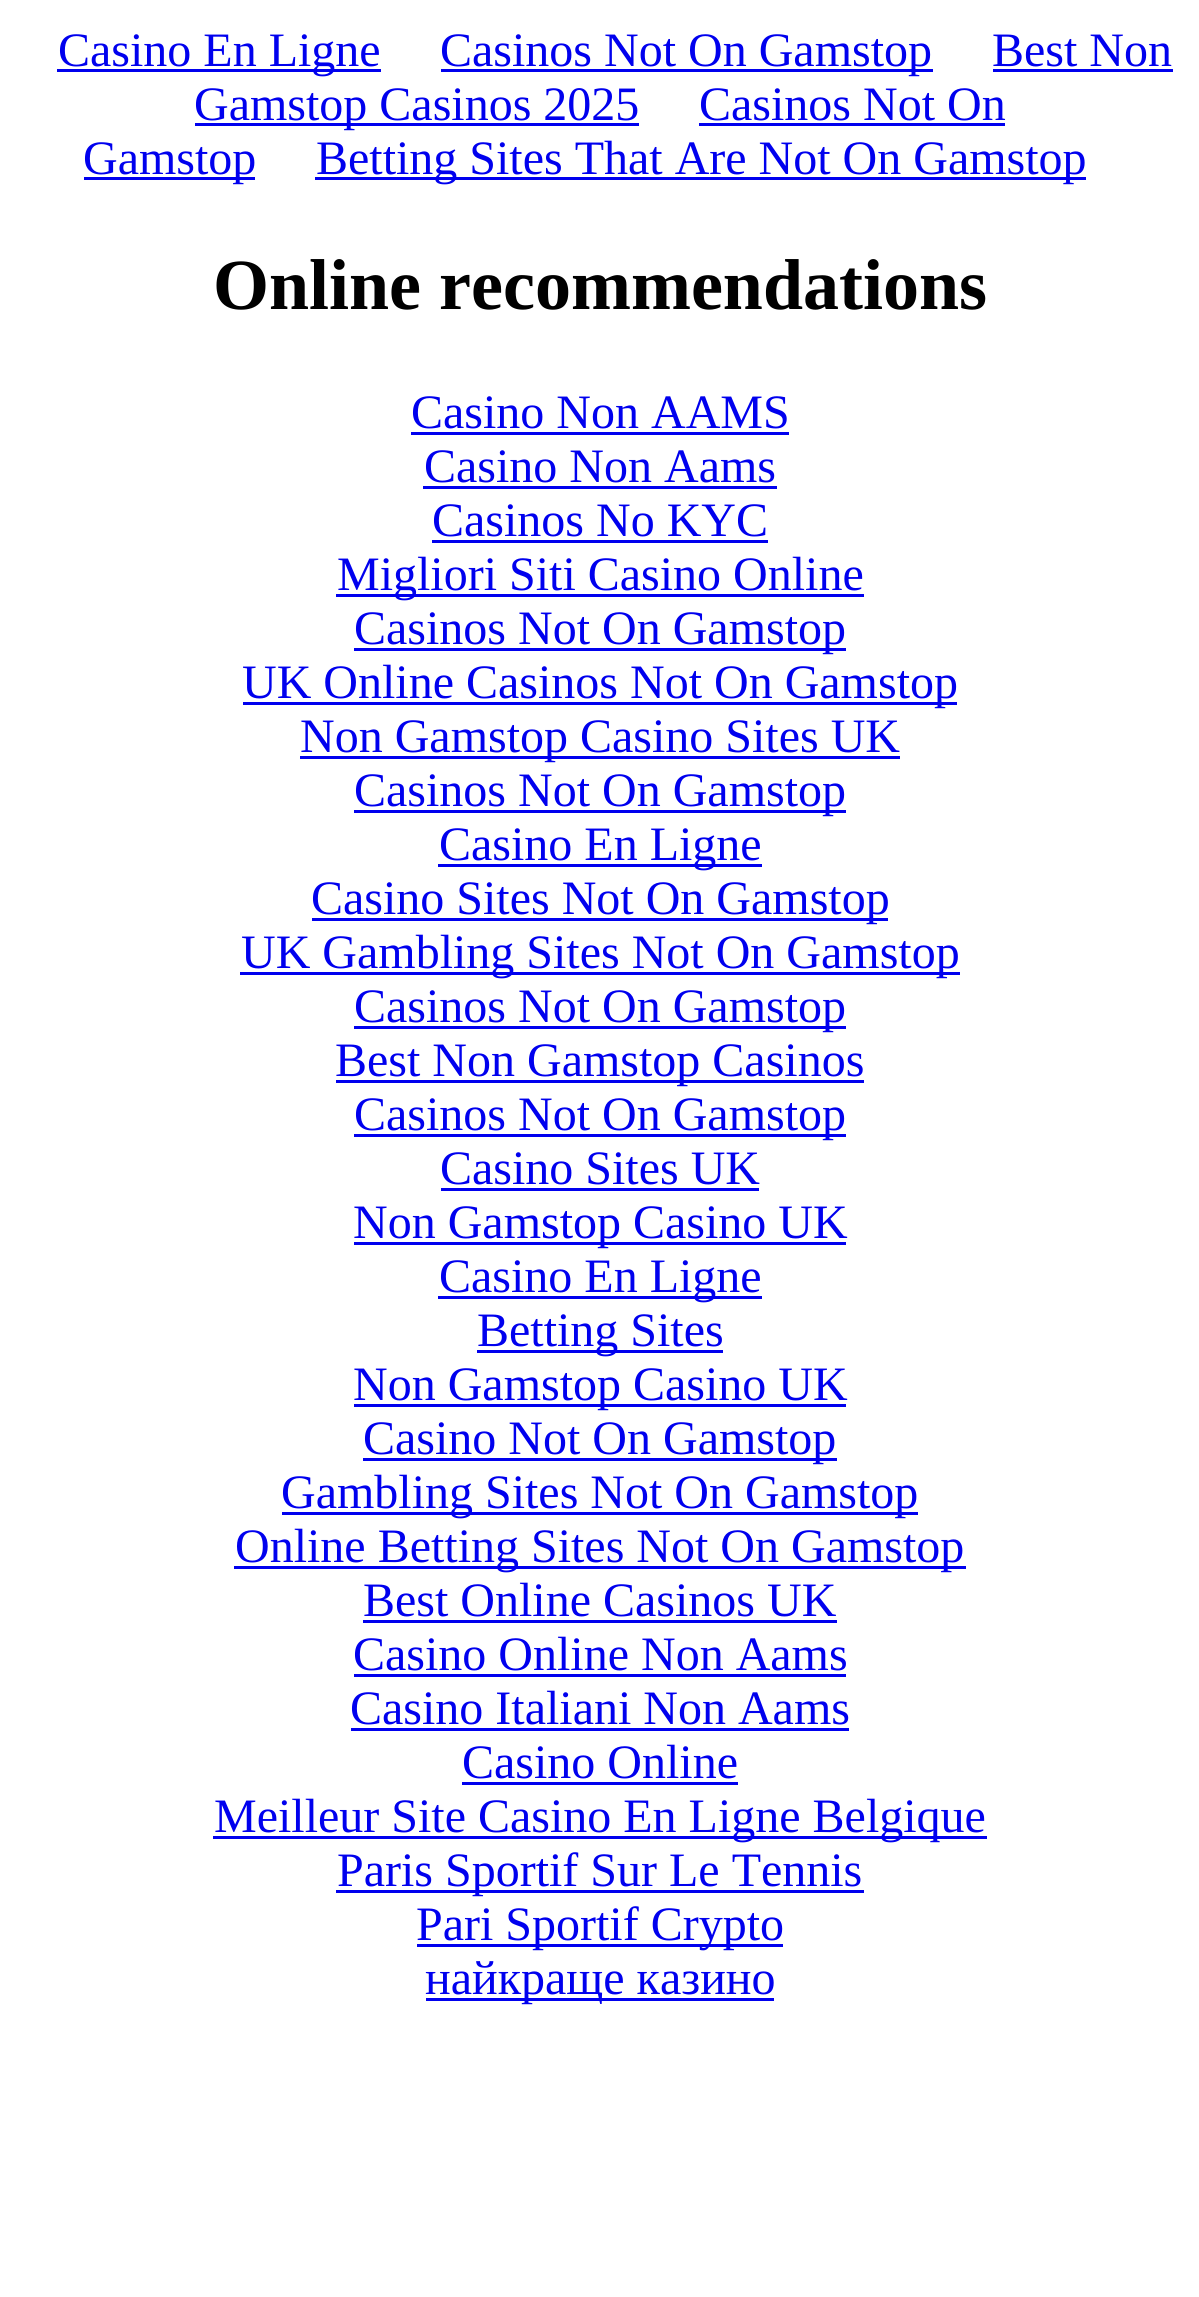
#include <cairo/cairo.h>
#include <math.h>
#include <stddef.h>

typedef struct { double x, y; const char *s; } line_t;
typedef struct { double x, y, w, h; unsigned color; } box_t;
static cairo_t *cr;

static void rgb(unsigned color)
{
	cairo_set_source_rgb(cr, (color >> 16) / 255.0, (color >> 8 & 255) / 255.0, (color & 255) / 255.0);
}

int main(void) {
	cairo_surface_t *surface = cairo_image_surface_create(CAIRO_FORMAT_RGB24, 1199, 2297);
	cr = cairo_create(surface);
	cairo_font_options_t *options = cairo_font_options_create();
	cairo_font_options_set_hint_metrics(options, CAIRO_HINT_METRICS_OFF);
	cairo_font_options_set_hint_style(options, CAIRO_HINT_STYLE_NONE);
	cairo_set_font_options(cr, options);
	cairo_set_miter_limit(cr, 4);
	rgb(0xffffff);
	cairo_paint(cr);
	{
		static const box_t items[] = {
			{57, 69, 324, 3, 0x0000ee},
			{441, 69, 492, 3, 0x0000ee},
			{993, 69, 180, 3, 0x0000ee},
			{195, 123, 444, 3, 0x0000ee},
			{699, 123, 306, 3, 0x0000ee},
			{84, 177, 171, 3, 0x0000ee},
			{315, 177, 771, 3, 0x0000ee},
			{411, 432, 378, 3, 0x0000ee},
			{423, 486, 354, 3, 0x0000ee},
			{432, 540, 336, 3, 0x0000ee},
			{336, 594, 528, 3, 0x0000ee},
			{354, 648, 492, 3, 0x0000ee},
			{243, 702, 714, 3, 0x0000ee},
			{300, 756, 600, 3, 0x0000ee},
			{354, 810, 492, 3, 0x0000ee},
			{438, 864, 324, 3, 0x0000ee},
			{312, 918, 576, 3, 0x0000ee},
			{240, 972, 720, 3, 0x0000ee},
			{354, 1026, 492, 3, 0x0000ee},
			{336, 1080, 528, 3, 0x0000ee},
			{354, 1134, 492, 3, 0x0000ee},
			{441, 1188, 318, 3, 0x0000ee},
			{354, 1242, 492, 3, 0x0000ee},
			{438, 1296, 324, 3, 0x0000ee},
			{477, 1350, 246, 3, 0x0000ee},
			{354, 1404, 492, 3, 0x0000ee},
			{363, 1458, 474, 3, 0x0000ee},
			{282, 1512, 636, 3, 0x0000ee},
			{234, 1566, 732, 3, 0x0000ee},
			{363, 1620, 474, 3, 0x0000ee},
			{354, 1674, 492, 3, 0x0000ee},
			{351, 1728, 498, 3, 0x0000ee},
			{462, 1782, 276, 3, 0x0000ee},
			{213, 1836, 774, 3, 0x0000ee},
			{336, 1890, 528, 3, 0x0000ee},
			{417, 1944, 366, 3, 0x0000ee},
			{426, 1998, 348, 3, 0x0000ee},
		};
		for (size_t i = 0; i < sizeof items / sizeof *items; i++) {
			rgb(items[i].color);
			cairo_rectangle(cr, items[i].x, items[i].y, items[i].w, items[i].h);
			cairo_fill(cr);
		}
	}
	cairo_select_font_face(cr, "Liberation Serif", CAIRO_FONT_SLANT_NORMAL, CAIRO_FONT_WEIGHT_NORMAL);
	cairo_set_font_size(cr, 48);
	{
		static const line_t items[] = {
			{58, 66, "Casino En Ligne"},
			{440, 66, "Casinos Not On Gamstop"},
			{992, 66, "Best Non"},
			{194, 120, "Gamstop Casinos 2025"},
			{699, 120, "Casinos Not On"},
			{83, 174, "Gamstop"},
			{316, 174, "Betting Sites That Are Not On Gamstop"},
		};
		for (size_t i = 0; i < sizeof items / sizeof *items; i++) {
			cairo_move_to(cr, items[i].x, items[i].y);
			cairo_show_text(cr, items[i].s);
		}
	}
	cairo_select_font_face(cr, "Liberation Serif", CAIRO_FONT_SLANT_NORMAL, CAIRO_FONT_WEIGHT_BOLD);
	cairo_set_font_size(cr, 72);
	rgb(0x000000);
	cairo_move_to(cr, 213, 309);
	cairo_show_text(cr, "Online recommendations");
	cairo_select_font_face(cr, "Liberation Serif", CAIRO_FONT_SLANT_NORMAL, CAIRO_FONT_WEIGHT_NORMAL);
	cairo_set_font_size(cr, 48);
	rgb(0x0000ee);
	{
		static const line_t items[] = {
			{411, 428, "Casino Non AAMS"},
			{424, 482, "Casino Non Aams"},
			{432, 536, "Casinos No KYC"},
			{337, 590, "Migliori Siti Casino Online"},
			{354, 644, "Casinos Not On Gamstop"},
			{242, 698, "UK Online Casinos Not On Gamstop"},
			{300, 752, "Non Gamstop Casino Sites UK"},
			{354, 806, "Casinos Not On Gamstop"},
			{439, 860, "Casino En Ligne"},
			{311, 914, "Casino Sites Not On Gamstop"},
			{241, 968, "UK Gambling Sites Not On Gamstop"},
			{354, 1022, "Casinos Not On Gamstop"},
			{335, 1076, "Best Non Gamstop Casinos"},
			{354, 1130, "Casinos Not On Gamstop"},
			{440, 1184, "Casino Sites UK"},
			{353, 1238, "Non Gamstop Casino UK"},
			{439, 1292, "Casino En Ligne"},
			{477, 1346, "Betting Sites"},
			{353, 1400, "Non Gamstop Casino UK"},
			{363, 1454, "Casino Not On Gamstop"},
			{281, 1508, "Gambling Sites Not On Gamstop"},
			{235, 1562, "Online Betting Sites Not On Gamstop"},
			{363, 1616, "Best Online Casinos UK"},
			{353, 1670, "Casino Online Non Aams"},
			{350, 1724, "Casino Italiani Non Aams"},
			{462, 1778, "Casino Online"},
			{214, 1832, "Meilleur Site Casino En Ligne Belgique"},
			{337, 1886, "Paris Sportif Sur Le Tennis"},
			{416, 1940, "Pari Sportif Crypto"},
			{425, 1994, "найкраще казино"},
		};
		for (size_t i = 0; i < sizeof items / sizeof *items; i++) {
			cairo_move_to(cr, items[i].x, items[i].y);
			cairo_show_text(cr, items[i].s);
		}
	}
	cairo_surface_write_to_png(surface, "page.png");
	cairo_font_options_destroy(options);
	cairo_destroy(cr);
	cairo_surface_destroy(surface);
	return 0;
}
